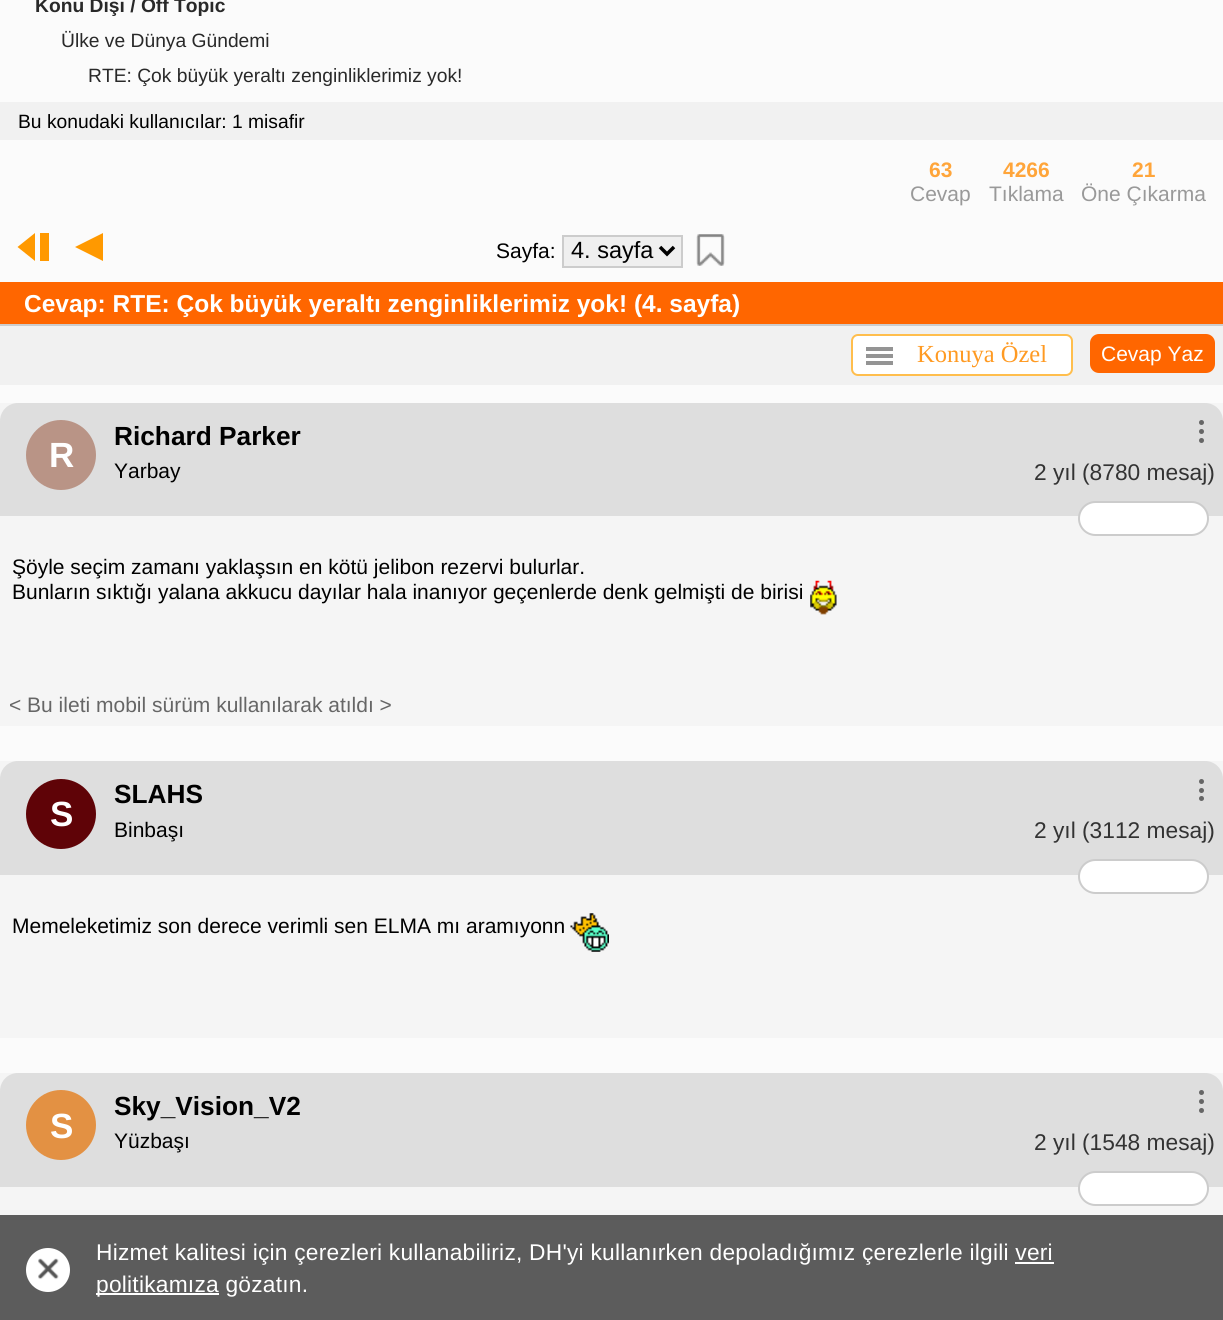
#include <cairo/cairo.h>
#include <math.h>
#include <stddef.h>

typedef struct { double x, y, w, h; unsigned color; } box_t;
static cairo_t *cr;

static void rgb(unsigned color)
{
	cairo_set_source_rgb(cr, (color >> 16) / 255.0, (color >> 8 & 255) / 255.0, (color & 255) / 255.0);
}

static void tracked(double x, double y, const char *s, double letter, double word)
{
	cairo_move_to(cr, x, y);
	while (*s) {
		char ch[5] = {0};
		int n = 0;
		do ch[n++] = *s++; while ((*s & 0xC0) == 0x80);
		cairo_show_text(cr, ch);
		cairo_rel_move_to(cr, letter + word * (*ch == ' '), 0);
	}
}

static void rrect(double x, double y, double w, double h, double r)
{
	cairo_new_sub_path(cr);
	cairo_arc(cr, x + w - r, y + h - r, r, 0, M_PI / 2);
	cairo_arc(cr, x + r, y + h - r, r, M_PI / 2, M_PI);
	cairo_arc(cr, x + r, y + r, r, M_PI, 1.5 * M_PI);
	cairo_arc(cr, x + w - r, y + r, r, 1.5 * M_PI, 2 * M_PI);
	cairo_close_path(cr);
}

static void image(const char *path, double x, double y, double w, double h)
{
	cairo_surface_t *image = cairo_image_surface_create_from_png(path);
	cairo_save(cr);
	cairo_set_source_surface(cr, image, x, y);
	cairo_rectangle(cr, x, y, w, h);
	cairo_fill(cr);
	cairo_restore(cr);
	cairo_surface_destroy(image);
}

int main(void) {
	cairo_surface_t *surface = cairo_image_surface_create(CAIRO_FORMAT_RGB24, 1223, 1320);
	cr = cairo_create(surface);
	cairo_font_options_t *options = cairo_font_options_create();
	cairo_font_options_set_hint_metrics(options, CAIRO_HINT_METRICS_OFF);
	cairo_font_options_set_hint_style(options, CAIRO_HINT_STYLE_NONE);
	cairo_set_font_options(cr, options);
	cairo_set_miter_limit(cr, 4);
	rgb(0xfbfbfb);
	cairo_paint(cr);
	rgb(0xf1f1f1);
	cairo_rectangle(cr, 0, 102, 1223, 38);
	cairo_fill(cr);
	rgb(0xff9900);
	cairo_new_path(cr);
	cairo_move_to(cr, 35, 233);
	cairo_line_to(cr, 35, 261);
	cairo_line_to(cr, 17.5, 247);
	cairo_close_path(cr);
	cairo_fill(cr);
	cairo_rectangle(cr, 40, 233, 9, 28);
	cairo_fill(cr);
	cairo_new_path(cr);
	cairo_move_to(cr, 103, 233);
	cairo_line_to(cr, 103, 261);
	cairo_line_to(cr, 75, 247);
	cairo_close_path(cr);
	cairo_fill(cr);
	rgb(0xefefef);
	cairo_rectangle(cr, 563, 236, 119, 31);
	cairo_fill_preserve(cr);
	rgb(0xcccccc);
	cairo_stroke(cr);
	cairo_new_path(cr);
	cairo_move_to(cr, 660, 247);
	cairo_line_to(cr, 667, 254);
	cairo_line_to(cr, 674, 247);
	rgb(0x000000);
	cairo_set_line_width(cr, 3.5);
	cairo_stroke(cr);
	image("img/1.png", 696, 234, 29, 32);
	{
		static const box_t items[] = {
			{0, 282, 1223, 42, 0xff6600},
			{0, 324, 1223, 2, 0xcccccc},
			{0, 326, 1223, 59, 0xf1f1f1},
		};
		for (size_t i = 0; i < sizeof items / sizeof *items; i++) {
			rgb(items[i].color);
			cairo_rectangle(cr, items[i].x, items[i].y, items[i].w, items[i].h);
			cairo_fill(cr);
		}
	}
	rgb(0xffffff);
	rrect(852, 335, 220, 40, 6);
	cairo_fill_preserve(cr);
	rgb(0xffbe4d);
	cairo_set_line_width(cr, 2);
	cairo_stroke(cr);
	{
		static const box_t items[] = {
			{866, 347, 27, 4, 0x949494},
			{866, 354, 27, 4, 0x949494},
			{866, 361, 27, 4, 0x949494},
		};
		for (size_t i = 0; i < sizeof items / sizeof *items; i++) {
			rgb(items[i].color);
			cairo_rectangle(cr, items[i].x, items[i].y, items[i].w, items[i].h);
			cairo_fill(cr);
		}
	}
	rgb(0xff6600);
	rrect(1090, 334, 125, 39, 9);
	cairo_fill(cr);
	rgb(0xf5f5f5);
	cairo_rectangle(cr, 0, 403, 1223, 323);
	cairo_fill(cr);
	rgb(0xdedede);
	cairo_new_path(cr);
	cairo_move_to(cr, 18, 403);
	cairo_line_to(cr, 1205, 403);
	cairo_curve_to(cr, 1215, 403, 1223, 411, 1223, 421);
	cairo_line_to(cr, 1223, 516);
	cairo_line_to(cr, 0, 516);
	cairo_line_to(cr, 0, 421);
	cairo_curve_to(cr, 0, 411, 8, 403, 18, 403);
	cairo_close_path(cr);
	cairo_fill(cr);
	rgb(0x666666);
	cairo_arc(cr, 1201.5, 431.5, 2.5, 0, 2 * M_PI);
	cairo_fill(cr);
	cairo_arc(cr, 1201.5, 422.5, 2.5, 0, 2 * M_PI);
	cairo_fill(cr);
	cairo_arc(cr, 1201.5, 440.5, 2.5, 0, 2 * M_PI);
	cairo_fill(cr);
	rgb(0xb99486);
	cairo_arc(cr, 61, 455, 35, 0, 2 * M_PI);
	cairo_fill(cr);
	rgb(0xffffff);
	rrect(1079, 502, 129, 33, 16.5);
	cairo_fill_preserve(cr);
	rgb(0xcccccc);
	cairo_stroke(cr);
	image("img/2.png", 810, 580, 27, 35);
	rgb(0xf5f5f5);
	cairo_rectangle(cr, 0, 761, 1223, 277);
	cairo_fill(cr);
	rgb(0xdedede);
	cairo_new_path(cr);
	cairo_move_to(cr, 18, 761);
	cairo_line_to(cr, 1205, 761);
	cairo_curve_to(cr, 1215, 761, 1223, 769, 1223, 779);
	cairo_line_to(cr, 1223, 875);
	cairo_line_to(cr, 0, 875);
	cairo_line_to(cr, 0, 779);
	cairo_curve_to(cr, 0, 769, 8, 761, 18, 761);
	cairo_close_path(cr);
	cairo_fill(cr);
	rgb(0x666666);
	cairo_arc(cr, 1201.5, 790.5, 2.5, 0, 2 * M_PI);
	cairo_fill(cr);
	cairo_arc(cr, 1201.5, 781.5, 2.5, 0, 2 * M_PI);
	cairo_fill(cr);
	cairo_arc(cr, 1201.5, 798.5, 2.5, 0, 2 * M_PI);
	cairo_fill(cr);
	rgb(0x5f0307);
	cairo_arc(cr, 61, 814, 35, 0, 2 * M_PI);
	cairo_fill(cr);
	rgb(0xffffff);
	rrect(1079, 860, 129, 33, 16.5);
	cairo_fill_preserve(cr);
	rgb(0xcccccc);
	cairo_stroke(cr);
	image("img/3.png", 570, 913, 39, 39);
	rgb(0xf5f5f5);
	cairo_rectangle(cr, 0, 1073, 1223, 142);
	cairo_fill(cr);
	rgb(0x5c5c5c);
	cairo_rectangle(cr, 0, 1215, 1223, 105);
	cairo_fill(cr);
	rgb(0xdedede);
	cairo_new_path(cr);
	cairo_move_to(cr, 18, 1073);
	cairo_line_to(cr, 1205, 1073);
	cairo_curve_to(cr, 1215, 1073, 1223, 1081, 1223, 1091);
	cairo_line_to(cr, 1223, 1187);
	cairo_line_to(cr, 0, 1187);
	cairo_line_to(cr, 0, 1091);
	cairo_curve_to(cr, 0, 1081, 8, 1073, 18, 1073);
	cairo_close_path(cr);
	cairo_fill(cr);
	rgb(0x666666);
	cairo_arc(cr, 1201.5, 1101.5, 2.5, 0, 2 * M_PI);
	cairo_fill(cr);
	cairo_arc(cr, 1201.5, 1092.5, 2.5, 0, 2 * M_PI);
	cairo_fill(cr);
	cairo_arc(cr, 1201.5, 1110.5, 2.5, 0, 2 * M_PI);
	cairo_fill(cr);
	rgb(0xe39143);
	cairo_arc(cr, 61, 1125, 35, 0, 2 * M_PI);
	cairo_fill(cr);
	rgb(0xffffff);
	rrect(1079, 1172, 129, 33, 16.5);
	cairo_fill_preserve(cr);
	rgb(0xcccccc);
	cairo_stroke(cr);
	rgb(0xffffff);
	cairo_arc(cr, 48, 1270, 22, 0, 2 * M_PI);
	cairo_fill(cr);
	image("img/4.png", 38, 1258, 21, 22);
	cairo_rectangle(cr, 1015, 1262, 39, 2);
	cairo_fill(cr);
	cairo_rectangle(cr, 96, 1293, 123, 2);
	cairo_fill(cr);
	cairo_select_font_face(cr, "Liberation Sans", CAIRO_FONT_SLANT_NORMAL, CAIRO_FONT_WEIGHT_BOLD);
	cairo_set_font_size(cr, 19.25);
	rgb(0x292929);
	cairo_move_to(cr, 35, 12);
	cairo_show_text(cr, "Konu Dışı / Off Topic");
	cairo_select_font_face(cr, "Liberation Sans", CAIRO_FONT_SLANT_NORMAL, CAIRO_FONT_WEIGHT_NORMAL);
	cairo_move_to(cr, 61, 47);
	cairo_show_text(cr, "Ülke ve Dünya Gündemi");
	cairo_move_to(cr, 88, 82);
	cairo_show_text(cr, "RTE: Çok büyük yeraltı zenginliklerimiz yok!");
	rgb(0x000000);
	cairo_move_to(cr, 18, 128);
	cairo_show_text(cr, "Bu konudaki kullanıcılar: 1 misafir");
	cairo_select_font_face(cr, "Liberation Sans", CAIRO_FONT_SLANT_NORMAL, CAIRO_FONT_WEIGHT_BOLD);
	cairo_set_font_size(cr, 21);
	rgb(0xffa53a);
	cairo_move_to(cr, 929, 177);
	cairo_show_text(cr, "63");
	cairo_select_font_face(cr, "Liberation Sans", CAIRO_FONT_SLANT_NORMAL, CAIRO_FONT_WEIGHT_NORMAL);
	rgb(0x999999);
	cairo_move_to(cr, 910, 201);
	cairo_show_text(cr, "Cevap");
	cairo_select_font_face(cr, "Liberation Sans", CAIRO_FONT_SLANT_NORMAL, CAIRO_FONT_WEIGHT_BOLD);
	rgb(0xffa53a);
	cairo_move_to(cr, 1003, 177);
	cairo_show_text(cr, "4266");
	cairo_select_font_face(cr, "Liberation Sans", CAIRO_FONT_SLANT_NORMAL, CAIRO_FONT_WEIGHT_NORMAL);
	rgb(0x999999);
	cairo_move_to(cr, 989, 201);
	cairo_show_text(cr, "Tıklama");
	cairo_select_font_face(cr, "Liberation Sans", CAIRO_FONT_SLANT_NORMAL, CAIRO_FONT_WEIGHT_BOLD);
	rgb(0xffa53a);
	cairo_move_to(cr, 1132, 177);
	cairo_show_text(cr, "21");
	cairo_select_font_face(cr, "Liberation Sans", CAIRO_FONT_SLANT_NORMAL, CAIRO_FONT_WEIGHT_NORMAL);
	rgb(0x999999);
	cairo_move_to(cr, 1081, 201);
	cairo_show_text(cr, "Öne Çıkarma");
	rgb(0x000000);
	cairo_move_to(cr, 496, 258);
	cairo_show_text(cr, "Sayfa:");
	cairo_set_font_size(cr, 23.5);
	cairo_move_to(cr, 571, 258);
	cairo_show_text(cr, "4. sayfa");
	cairo_select_font_face(cr, "Liberation Sans", CAIRO_FONT_SLANT_NORMAL, CAIRO_FONT_WEIGHT_BOLD);
	cairo_set_font_size(cr, 24.5);
	rgb(0xffffff);
	cairo_move_to(cr, 24, 312);
	cairo_show_text(cr, "Cevap: RTE: Çok büyük yeraltı zenginliklerimiz yok! (4. sayfa)");
	cairo_select_font_face(cr, "Liberation Serif", CAIRO_FONT_SLANT_NORMAL, CAIRO_FONT_WEIGHT_NORMAL);
	rgb(0xff9a22);
	cairo_move_to(cr, 917, 362);
	cairo_show_text(cr, "Konuya Özel");
	cairo_select_font_face(cr, "Liberation Sans", CAIRO_FONT_SLANT_NORMAL, CAIRO_FONT_WEIGHT_NORMAL);
	cairo_set_font_size(cr, 21);
	rgb(0xffffff);
	cairo_move_to(cr, 1101, 361);
	cairo_show_text(cr, "Cevap Yaz");
	cairo_select_font_face(cr, "Liberation Sans", CAIRO_FONT_SLANT_NORMAL, CAIRO_FONT_WEIGHT_BOLD);
	cairo_set_font_size(cr, 26.25);
	rgb(0x000000);
	cairo_move_to(cr, 114, 445);
	cairo_show_text(cr, "Richard Parker");
	cairo_set_font_size(cr, 35);
	rgb(0xffffff);
	tracked(49, 467, "R", -1, 0);
	cairo_select_font_face(cr, "Liberation Sans", CAIRO_FONT_SLANT_NORMAL, CAIRO_FONT_WEIGHT_NORMAL);
	cairo_set_font_size(cr, 21);
	rgb(0x000000);
	cairo_move_to(cr, 114, 478);
	cairo_show_text(cr, "Yarbay");
	cairo_set_font_size(cr, 22.75);
	rgb(0x333333);
	cairo_move_to(cr, 1034, 480);
	cairo_show_text(cr, "2 yıl (8780 mesaj)");
	cairo_set_font_size(cr, 21);
	rgb(0x000000);
	cairo_move_to(cr, 12, 574);
	cairo_show_text(cr, "Şöyle seçim zamanı yaklaşsın en kötü jelibon rezervi bulurlar.");
	cairo_move_to(cr, 12, 599);
	cairo_show_text(cr, "Bunların sıktığı yalana akkucu dayılar hala inanıyor geçenlerde denk gelmişti de birisi");
	rgb(0x666666);
	cairo_move_to(cr, 9, 712);
	cairo_show_text(cr, "< Bu ileti mobil sürüm kullanılarak atıldı >");
	cairo_select_font_face(cr, "Liberation Sans", CAIRO_FONT_SLANT_NORMAL, CAIRO_FONT_WEIGHT_BOLD);
	cairo_set_font_size(cr, 26.25);
	rgb(0x000000);
	cairo_move_to(cr, 114, 803);
	cairo_show_text(cr, "SLAHS");
	cairo_set_font_size(cr, 35);
	rgb(0xffffff);
	tracked(50, 826, "S", -1, 0);
	cairo_select_font_face(cr, "Liberation Sans", CAIRO_FONT_SLANT_NORMAL, CAIRO_FONT_WEIGHT_NORMAL);
	cairo_set_font_size(cr, 21);
	rgb(0x000000);
	cairo_move_to(cr, 114, 837);
	cairo_show_text(cr, "Binbaşı");
	cairo_set_font_size(cr, 22.75);
	rgb(0x333333);
	cairo_move_to(cr, 1034, 838);
	cairo_show_text(cr, "2 yıl (3112 mesaj)");
	cairo_set_font_size(cr, 21);
	rgb(0x000000);
	cairo_move_to(cr, 12, 933);
	cairo_show_text(cr, "Memeleketimiz son derece verimli sen ELMA mı aramıyonn");
	cairo_select_font_face(cr, "Liberation Sans", CAIRO_FONT_SLANT_NORMAL, CAIRO_FONT_WEIGHT_BOLD);
	cairo_set_font_size(cr, 26.25);
	cairo_move_to(cr, 114, 1115);
	cairo_show_text(cr, "Sky_Vision_V2");
	cairo_set_font_size(cr, 35);
	rgb(0xffffff);
	tracked(50, 1138, "S", -1, 0);
	cairo_select_font_face(cr, "Liberation Sans", CAIRO_FONT_SLANT_NORMAL, CAIRO_FONT_WEIGHT_NORMAL);
	cairo_set_font_size(cr, 21);
	rgb(0x000000);
	cairo_move_to(cr, 114, 1148);
	cairo_show_text(cr, "Yüzbaşı");
	cairo_set_font_size(cr, 22.75);
	rgb(0x333333);
	cairo_move_to(cr, 1034, 1150);
	cairo_show_text(cr, "2 yıl (1548 mesaj)");
	rgb(0xffffff);
	tracked(96, 1260, "Hizmet kalitesi için çerezleri kullanabiliriz, DH'yi kullanırken depoladığımız çerezlerle ilgili veri", 0.23, 0);
	tracked(96, 1292, "politikamıza gözatın.", 0.23, 0);
	cairo_surface_write_to_png(surface, "page.png");
	cairo_font_options_destroy(options);
	cairo_destroy(cr);
	cairo_surface_destroy(surface);
	return 0;
}
